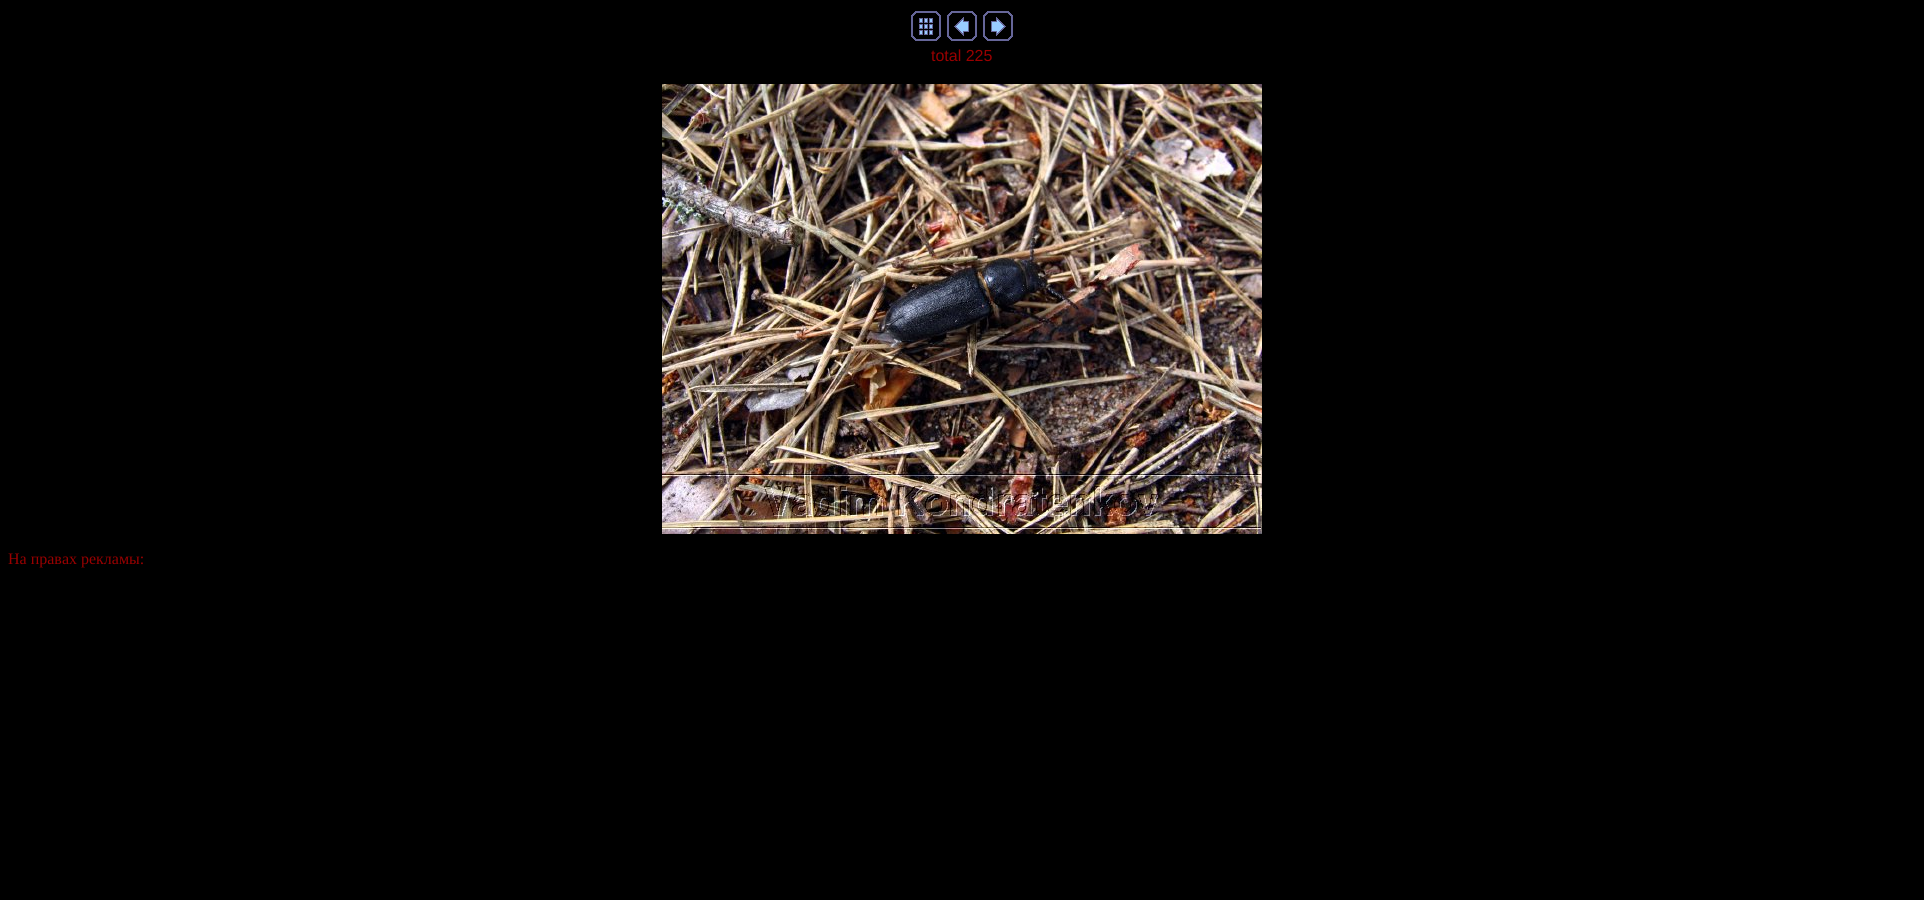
#include <cairo/cairo.h>
#include <math.h>
#include <stddef.h>

static cairo_t *cr;

static void rgb(unsigned color)
{
	cairo_set_source_rgb(cr, (color >> 16) / 255.0, (color >> 8 & 255) / 255.0, (color & 255) / 255.0);
}

static void image(const char *path, double x, double y, double w, double h)
{
	cairo_surface_t *image = cairo_image_surface_create_from_png(path);
	cairo_save(cr);
	cairo_set_source_surface(cr, image, x, y);
	cairo_rectangle(cr, x, y, w, h);
	cairo_fill(cr);
	cairo_restore(cr);
	cairo_surface_destroy(image);
}

int main(void) {
	cairo_surface_t *surface = cairo_image_surface_create(CAIRO_FORMAT_RGB24, 1924, 900);
	cr = cairo_create(surface);
	cairo_font_options_t *options = cairo_font_options_create();
	cairo_font_options_set_hint_metrics(options, CAIRO_HINT_METRICS_OFF);
	cairo_font_options_set_hint_style(options, CAIRO_HINT_STYLE_NONE);
	cairo_set_font_options(cr, options);
	cairo_set_miter_limit(cr, 4);
	rgb(0x000000);
	cairo_paint(cr);
	image("img/1.png", 911, 11, 30, 30);
	image("img/2.png", 947, 11, 30, 30);
	image("img/3.png", 983, 11, 30, 30);
	image("img/4.png", 662, 84, 600, 450);
	cairo_select_font_face(cr, "Liberation Sans", CAIRO_FONT_SLANT_NORMAL, CAIRO_FONT_WEIGHT_NORMAL);
	cairo_set_font_size(cr, 16);
	rgb(0x990000);
	cairo_move_to(cr, 931, 61);
	cairo_show_text(cr, "total 225");
	cairo_select_font_face(cr, "Liberation Serif", CAIRO_FONT_SLANT_NORMAL, CAIRO_FONT_WEIGHT_NORMAL);
	cairo_move_to(cr, 8, 564);
	cairo_show_text(cr, "На правах рекламы:");
	cairo_surface_write_to_png(surface, "page.png");
	cairo_font_options_destroy(options);
	cairo_destroy(cr);
	cairo_surface_destroy(surface);
	return 0;
}
